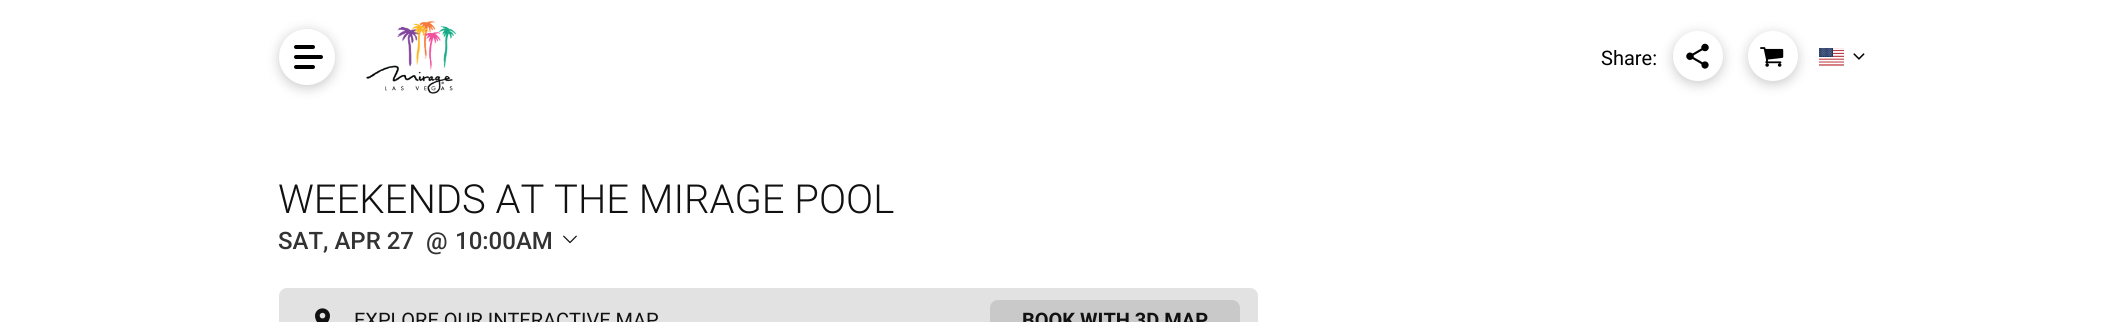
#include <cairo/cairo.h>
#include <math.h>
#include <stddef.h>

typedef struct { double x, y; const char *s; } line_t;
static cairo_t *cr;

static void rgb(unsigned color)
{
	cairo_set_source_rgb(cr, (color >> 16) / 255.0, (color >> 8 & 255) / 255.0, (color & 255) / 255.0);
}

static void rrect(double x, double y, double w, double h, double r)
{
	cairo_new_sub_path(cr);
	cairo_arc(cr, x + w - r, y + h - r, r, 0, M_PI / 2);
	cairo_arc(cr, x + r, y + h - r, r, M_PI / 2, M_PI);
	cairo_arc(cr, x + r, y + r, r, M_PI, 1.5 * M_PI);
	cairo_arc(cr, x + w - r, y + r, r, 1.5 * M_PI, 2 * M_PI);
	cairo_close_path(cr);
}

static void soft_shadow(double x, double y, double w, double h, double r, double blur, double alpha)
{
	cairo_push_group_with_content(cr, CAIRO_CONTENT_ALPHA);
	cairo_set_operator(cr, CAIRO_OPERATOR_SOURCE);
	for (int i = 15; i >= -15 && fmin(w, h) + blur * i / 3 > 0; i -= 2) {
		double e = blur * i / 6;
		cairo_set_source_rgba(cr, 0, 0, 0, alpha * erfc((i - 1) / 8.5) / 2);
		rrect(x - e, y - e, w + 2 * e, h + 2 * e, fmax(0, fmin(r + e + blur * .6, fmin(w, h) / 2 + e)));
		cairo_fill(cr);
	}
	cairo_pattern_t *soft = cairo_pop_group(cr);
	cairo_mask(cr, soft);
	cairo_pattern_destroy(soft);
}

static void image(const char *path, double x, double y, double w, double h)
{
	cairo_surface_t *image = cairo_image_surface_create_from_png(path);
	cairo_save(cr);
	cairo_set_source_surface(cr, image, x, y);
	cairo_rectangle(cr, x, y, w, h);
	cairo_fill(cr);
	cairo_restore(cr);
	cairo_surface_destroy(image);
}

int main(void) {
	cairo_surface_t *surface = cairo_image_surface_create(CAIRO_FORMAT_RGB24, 2106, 322);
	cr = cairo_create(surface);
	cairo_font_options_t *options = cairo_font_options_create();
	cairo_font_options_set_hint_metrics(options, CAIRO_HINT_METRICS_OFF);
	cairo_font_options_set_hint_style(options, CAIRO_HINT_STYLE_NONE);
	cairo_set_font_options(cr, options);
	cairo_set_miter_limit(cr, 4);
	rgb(0xffffff);
	cairo_paint(cr);
	rgb(0x000000);
	soft_shadow(279, 31, 56, 57, 28, 6, 0.2);
	rgb(0xffffff);
	cairo_arc(cr, 307, 57, 28, 0, 2 * M_PI);
	cairo_fill(cr);
	rgb(0x000000);
	rrect(294, 45, 21, 4, 2);
	cairo_fill(cr);
	rrect(294, 55, 29, 4, 2);
	cairo_fill(cr);
	rrect(294, 65, 21, 4, 2);
	cairo_fill(cr);
	image("img/1.png", 366, 21, 91, 73);
	rgb(0x000000);
	soft_shadow(1673, 34, 50, 50, 25, 6, 0.2);
	rgb(0xffffff);
	cairo_arc(cr, 1698, 56, 25, 0, 2 * M_PI);
	cairo_fill(cr);
	image("img/2.png", 1686, 43, 23, 26);
	rgb(0x000000);
	soft_shadow(1748, 34, 50, 50, 25, 6, 0.2);
	rgb(0xffffff);
	cairo_arc(cr, 1773, 56, 25, 0, 2 * M_PI);
	cairo_fill(cr);
	image("img/3.png", 1760, 47, 24, 20);
	image("img/4.png", 1819, 48, 25, 18);
	image("img/5.png", 1853, 53, 12, 7);
	image("img/6.png", 563, 235, 14, 9);
	rgb(0xe2e2e2);
	rrect(279, 288, 979, 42, 8);
	cairo_fill(cr);
	image("img/7.png", 315, 308, 15, 14);
	rgb(0xc9c9c9);
	rrect(990, 300, 250, 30, 8);
	cairo_fill(cr);
	cairo_select_font_face(cr, "Roboto", CAIRO_FONT_SLANT_NORMAL, CAIRO_FONT_WEIGHT_NORMAL);
	cairo_set_font_size(cr, 20);
	rgb(0x000000);
	cairo_move_to(cr, 1601, 65);
	cairo_show_text(cr, "Share:");
	cairo_select_font_face(cr, "Roboto Light", CAIRO_FONT_SLANT_NORMAL, CAIRO_FONT_WEIGHT_NORMAL);
	cairo_set_font_size(cr, 40);
	rgb(0x111111);
	cairo_move_to(cr, 278, 213);
	cairo_show_text(cr, "WEEKENDS AT THE MIRAGE POOL");
	cairo_select_font_face(cr, "Roboto Medium", CAIRO_FONT_SLANT_NORMAL, CAIRO_FONT_WEIGHT_NORMAL);
	cairo_set_font_size(cr, 24);
	rgb(0x333333);
	{
		static const line_t items[] = {
			{278, 249, "SAT, APR 27"},
			{426, 249, "@"},
			{455, 249, "10:00AM"},
		};
		for (size_t i = 0; i < sizeof items / sizeof *items; i++) {
			cairo_move_to(cr, items[i].x, items[i].y);
			cairo_show_text(cr, items[i].s);
		}
	}
	cairo_select_font_face(cr, "Roboto", CAIRO_FONT_SLANT_NORMAL, CAIRO_FONT_WEIGHT_NORMAL);
	cairo_set_font_size(cr, 20);
	rgb(0x111111);
	cairo_move_to(cr, 354, 327);
	cairo_show_text(cr, "EXPLORE OUR INTERACTIVE MAP");
	cairo_select_font_face(cr, "Roboto", CAIRO_FONT_SLANT_NORMAL, CAIRO_FONT_WEIGHT_BOLD);
	cairo_move_to(cr, 1022, 327);
	cairo_show_text(cr, "BOOK WITH 3D MAP");
	cairo_surface_write_to_png(surface, "page.png");
	cairo_font_options_destroy(options);
	cairo_destroy(cr);
	cairo_surface_destroy(surface);
	return 0;
}
